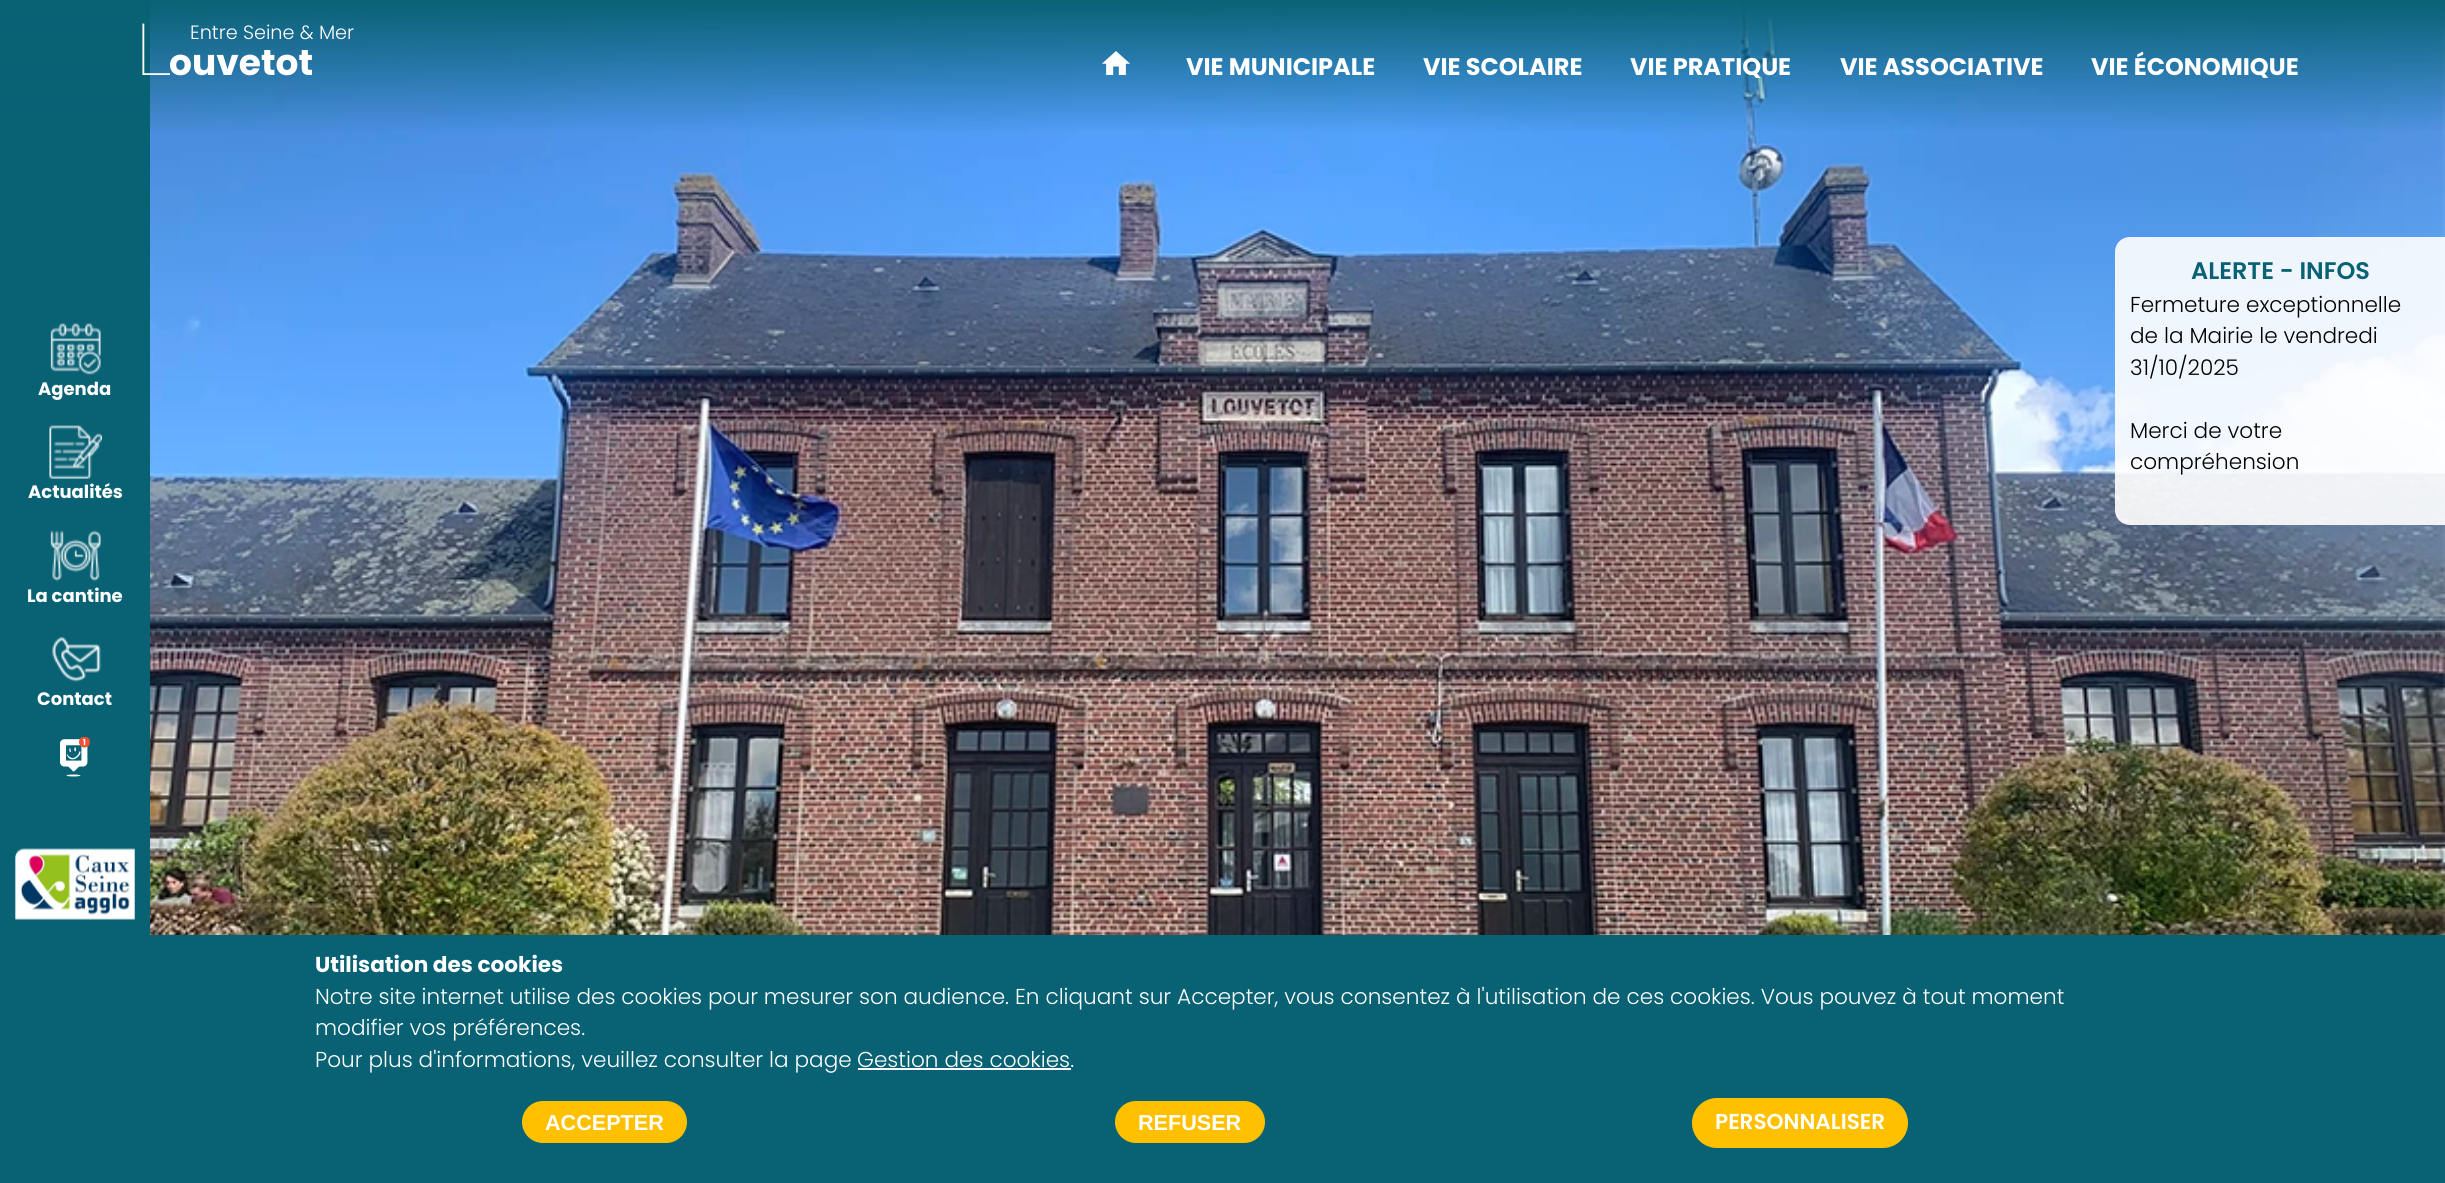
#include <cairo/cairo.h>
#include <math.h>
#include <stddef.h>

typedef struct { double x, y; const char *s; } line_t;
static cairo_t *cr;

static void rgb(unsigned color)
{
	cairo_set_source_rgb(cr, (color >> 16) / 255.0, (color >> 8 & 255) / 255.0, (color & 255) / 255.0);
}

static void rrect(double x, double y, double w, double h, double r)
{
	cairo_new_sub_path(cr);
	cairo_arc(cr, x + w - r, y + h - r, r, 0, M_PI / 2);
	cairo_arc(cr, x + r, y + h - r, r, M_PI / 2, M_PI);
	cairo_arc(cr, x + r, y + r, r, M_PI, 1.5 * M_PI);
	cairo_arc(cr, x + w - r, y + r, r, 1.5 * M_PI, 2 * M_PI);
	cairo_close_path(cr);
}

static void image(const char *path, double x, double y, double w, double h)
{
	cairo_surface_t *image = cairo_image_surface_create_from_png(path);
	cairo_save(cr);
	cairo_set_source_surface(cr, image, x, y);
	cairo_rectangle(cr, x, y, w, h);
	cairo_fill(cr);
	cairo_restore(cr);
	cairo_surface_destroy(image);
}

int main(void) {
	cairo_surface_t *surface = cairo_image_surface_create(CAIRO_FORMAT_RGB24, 2445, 1183);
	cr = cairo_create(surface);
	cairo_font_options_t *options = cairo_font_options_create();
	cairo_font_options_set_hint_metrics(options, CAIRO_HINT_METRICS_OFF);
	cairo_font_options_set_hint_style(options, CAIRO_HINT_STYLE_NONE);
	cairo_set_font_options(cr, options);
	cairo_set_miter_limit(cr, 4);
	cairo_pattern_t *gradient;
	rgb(0xffffff);
	cairo_paint(cr);
	rgb(0x086274);
	cairo_rectangle(cr, 0, 1, 150, 934);
	cairo_fill(cr);
	image("img/8.png", 150, 1, 2295, 934);
	gradient = cairo_pattern_create_linear(1223, 0, 1223, 134);
	cairo_pattern_add_color_stop_rgba(gradient, 0, 0.031, 0.384, 0.455, 1);
	cairo_pattern_add_color_stop_rgba(gradient, 1, 0.031, 0.384, 0.455, 0);
	cairo_set_source(cr, gradient);
	cairo_pattern_destroy(gradient);
	cairo_rectangle(cr, 0, 0, 2445, 131);
	cairo_fill(cr);
	image("img/1.png", 1102, 51, 28, 24);
	image("img/2.png", 50, 323, 51, 52);
	image("img/3.png", 49, 425, 53, 54);
	image("img/4.png", 50, 530, 51, 52);
	image("img/5.png", 52, 636, 49, 46);
	image("img/6.png", 60, 737, 30, 40);
	image("img/7.png", 15, 848, 120, 72);
	cairo_set_source_rgba(cr, 1, 1, 1, 0.9);
	cairo_new_path(cr);
	cairo_move_to(cr, 2130, 237);
	cairo_line_to(cr, 2445, 237);
	cairo_line_to(cr, 2445, 525);
	cairo_line_to(cr, 2130, 525);
	cairo_curve_to(cr, 2121.5, 525, 2115, 518.5, 2115, 510);
	cairo_line_to(cr, 2115, 252);
	cairo_curve_to(cr, 2115, 243.5, 2121.5, 237, 2130, 237);
	cairo_close_path(cr);
	cairo_fill(cr);
	rgb(0x086274);
	cairo_rectangle(cr, 0, 935, 2445, 248);
	cairo_fill(cr);
	rgb(0xffffff);
	cairo_rectangle(cr, 858, 1068, 213, 2);
	cairo_fill(cr);
	rgb(0xffc000);
	rrect(523, 1102, 163, 40, 20);
	cairo_fill_preserve(cr);
	cairo_stroke(cr);
	rrect(1116, 1102, 148, 40, 20);
	cairo_fill_preserve(cr);
	cairo_stroke(cr);
	rrect(1693, 1099, 214, 48, 24);
	cairo_fill_preserve(cr);
	cairo_stroke(cr);
	cairo_select_font_face(cr, "Noto Sans Thin", CAIRO_FONT_SLANT_NORMAL, CAIRO_FONT_WEIGHT_NORMAL);
	cairo_set_font_size(cr, 72);
	rgb(0xffffff);
	cairo_move_to(cr, 135, 75);
	cairo_show_text(cr, "L");
	cairo_select_font_face(cr, "Poppins", CAIRO_FONT_SLANT_NORMAL, CAIRO_FONT_WEIGHT_BOLD);
	cairo_set_font_size(cr, 36);
	cairo_move_to(cr, 169, 75);
	cairo_show_text(cr, "ouvetot");
	cairo_select_font_face(cr, "Poppins Light", CAIRO_FONT_SLANT_NORMAL, CAIRO_FONT_WEIGHT_NORMAL);
	cairo_set_font_size(cr, 19.25);
	cairo_move_to(cr, 190, 39);
	cairo_show_text(cr, "Entre Seine & Mer");
	cairo_select_font_face(cr, "Poppins", CAIRO_FONT_SLANT_NORMAL, CAIRO_FONT_WEIGHT_BOLD);
	cairo_set_font_size(cr, 24);
	{
		static const line_t items[] = {
			{1186, 75, "VIE MUNICIPALE"},
			{1423, 75, "VIE SCOLAIRE"},
			{1630, 75, "VIE PRATIQUE"},
			{1840, 75, "VIE ASSOCIATIVE"},
			{2091, 75, "VIE ÉCONOMIQUE"},
		};
		for (size_t i = 0; i < sizeof items / sizeof *items; i++) {
			cairo_move_to(cr, items[i].x, items[i].y);
			cairo_show_text(cr, items[i].s);
		}
	}
	cairo_set_font_size(cr, 18);
	{
		static const line_t items[] = {
			{38, 395, "Agenda"},
			{28, 498, "Actualités"},
			{27, 602, "La cantine"},
			{37, 705, "Contact"},
		};
		for (size_t i = 0; i < sizeof items / sizeof *items; i++) {
			cairo_move_to(cr, items[i].x, items[i].y);
			cairo_show_text(cr, items[i].s);
		}
	}
	cairo_select_font_face(cr, "Poppins SemiBold", CAIRO_FONT_SLANT_NORMAL, CAIRO_FONT_WEIGHT_NORMAL);
	cairo_set_font_size(cr, 24);
	rgb(0x086274);
	cairo_move_to(cr, 2191, 279);
	cairo_show_text(cr, "ALERTE - INFOS");
	cairo_select_font_face(cr, "Poppins Light", CAIRO_FONT_SLANT_NORMAL, CAIRO_FONT_WEIGHT_NORMAL);
	cairo_set_font_size(cr, 21.6);
	rgb(0x000000);
	{
		static const line_t items[] = {
			{2130, 312, "Fermeture exceptionnelle"},
			{2130, 343, "de la Mairie le vendredi"},
			{2130, 375, "31/10/2025"},
			{2130, 438, "Merci de votre"},
			{2130, 469, "compréhension"},
		};
		for (size_t i = 0; i < sizeof items / sizeof *items; i++) {
			cairo_move_to(cr, items[i].x, items[i].y);
			cairo_show_text(cr, items[i].s);
		}
	}
	cairo_select_font_face(cr, "Poppins", CAIRO_FONT_SLANT_NORMAL, CAIRO_FONT_WEIGHT_BOLD);
	rgb(0xffffff);
	cairo_move_to(cr, 315, 972);
	cairo_show_text(cr, "Utilisation des cookies");
	cairo_select_font_face(cr, "Poppins Light", CAIRO_FONT_SLANT_NORMAL, CAIRO_FONT_WEIGHT_NORMAL);
	{
		static const line_t items[] = {
			{315, 1004, "Notre site internet utilise des cookies pour mesurer son audience. En cliquant sur Accepter, vous consentez à l'utilisation de ces cookies. Vous pouvez à tout moment"},
			{315, 1035, "modifier vos préférences."},
			{315, 1067, "Pour plus d'informations, veuillez consulter la page"},
			{857, 1067, "Gestion des cookies."},
		};
		for (size_t i = 0; i < sizeof items / sizeof *items; i++) {
			cairo_move_to(cr, items[i].x, items[i].y);
			cairo_show_text(cr, items[i].s);
		}
	}
	cairo_select_font_face(cr, "Liberation Sans", CAIRO_FONT_SLANT_NORMAL, CAIRO_FONT_WEIGHT_BOLD);
	cairo_move_to(cr, 545, 1130);
	cairo_show_text(cr, "ACCEPTER");
	cairo_move_to(cr, 1138, 1130);
	cairo_show_text(cr, "REFUSER");
	cairo_select_font_face(cr, "Poppins SemiBold", CAIRO_FONT_SLANT_NORMAL, CAIRO_FONT_WEIGHT_NORMAL);
	cairo_move_to(cr, 1715, 1129);
	cairo_show_text(cr, "PERSONNALISER");
	cairo_surface_write_to_png(surface, "page.png");
	cairo_font_options_destroy(options);
	cairo_destroy(cr);
	cairo_surface_destroy(surface);
	return 0;
}
